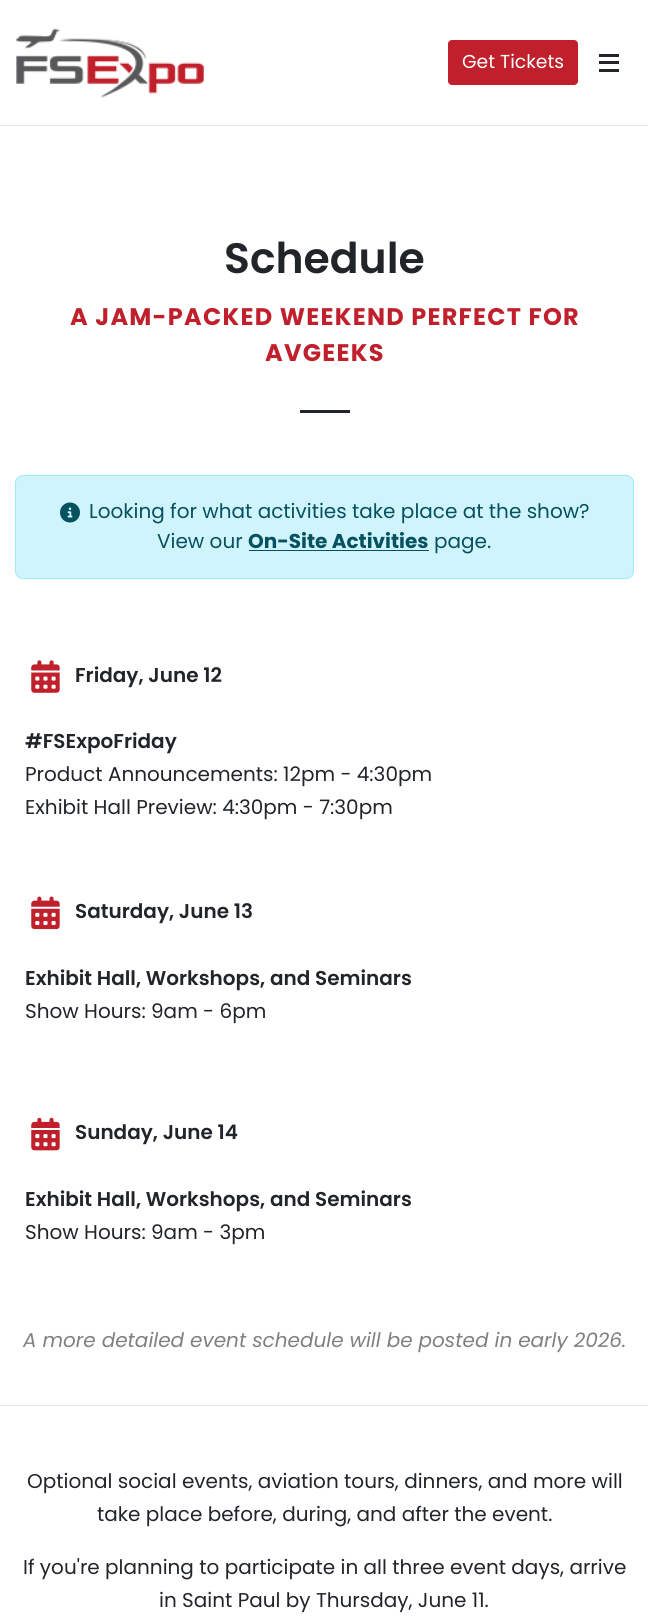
#include <cairo/cairo.h>
#include <math.h>
#include <stddef.h>

typedef struct { double x, y; const char *s; } line_t;
typedef struct { double x, y, w, h; unsigned color; } box_t;
static cairo_t *cr;

static void rgb(unsigned color)
{
	cairo_set_source_rgb(cr, (color >> 16) / 255.0, (color >> 8 & 255) / 255.0, (color & 255) / 255.0);
}

static void tracked(double x, double y, const char *s, double letter, double word)
{
	cairo_move_to(cr, x, y);
	while (*s) {
		char ch[5] = {0};
		int n = 0;
		do ch[n++] = *s++; while ((*s & 0xC0) == 0x80);
		cairo_show_text(cr, ch);
		cairo_rel_move_to(cr, letter + word * (*ch == ' '), 0);
	}
}

static void rrect(double x, double y, double w, double h, double r)
{
	cairo_new_sub_path(cr);
	cairo_arc(cr, x + w - r, y + h - r, r, 0, M_PI / 2);
	cairo_arc(cr, x + r, y + h - r, r, M_PI / 2, M_PI);
	cairo_arc(cr, x + r, y + r, r, M_PI, 1.5 * M_PI);
	cairo_arc(cr, x + w - r, y + r, r, 1.5 * M_PI, 2 * M_PI);
	cairo_close_path(cr);
}

static void image(const char *path, double x, double y, double w, double h)
{
	cairo_surface_t *image = cairo_image_surface_create_from_png(path);
	cairo_save(cr);
	cairo_set_source_surface(cr, image, x, y);
	cairo_rectangle(cr, x, y, w, h);
	cairo_fill(cr);
	cairo_restore(cr);
	cairo_surface_destroy(image);
}

int main(void) {
	cairo_surface_t *surface = cairo_image_surface_create(CAIRO_FORMAT_RGB24, 648, 1621);
	cr = cairo_create(surface);
	cairo_font_options_t *options = cairo_font_options_create();
	cairo_font_options_set_hint_metrics(options, CAIRO_HINT_METRICS_OFF);
	cairo_font_options_set_hint_style(options, CAIRO_HINT_STYLE_NONE);
	cairo_set_font_options(cr, options);
	cairo_set_miter_limit(cr, 4);
	rgb(0xffffff);
	cairo_paint(cr);
	rgb(0xe6e6e6);
	cairo_rectangle(cr, 0, 125, 648, 1);
	cairo_fill(cr);
	image("img/1.png", 16, 28, 188, 70);
	rgb(0xc0202c);
	rrect(448.5, 40.5, 129, 44, 3.5);
	cairo_fill_preserve(cr);
	cairo_set_line_width(cr, 1);
	cairo_stroke(cr);
	{
		static const box_t items[] = {
			{599, 61, 20, 3, 0x212529},
			{599, 54, 20, 3, 0x212529},
			{599, 69, 20, 3, 0x212529},
			{300, 410, 50, 3, 0x212529},
		};
		for (size_t i = 0; i < sizeof items / sizeof *items; i++) {
			rgb(items[i].color);
			cairo_rectangle(cr, items[i].x, items[i].y, items[i].w, items[i].h);
			cairo_fill(cr);
		}
	}
	rgb(0xcff4fc);
	rrect(15.5, 475.5, 618, 103, 7.5);
	cairo_fill_preserve(cr);
	rgb(0x9eeaf9);
	cairo_stroke(cr);
	image("img/2.png", 60, 502, 20, 21);
	rgb(0x055160);
	cairo_rectangle(cr, 249, 550, 180, 1);
	cairo_fill(cr);
	image("img/3.png", 31, 660, 29, 33);
	image("img/4.png", 31, 896, 29, 34);
	image("img/5.png", 31, 1117, 29, 34);
	rgb(0xe6e6e6);
	cairo_rectangle(cr, 0, 1405, 648, 1);
	cairo_fill(cr);
	cairo_select_font_face(cr, "Poppins", CAIRO_FONT_SLANT_NORMAL, CAIRO_FONT_WEIGHT_NORMAL);
	cairo_set_font_size(cr, 18.75);
	rgb(0xffffff);
	cairo_move_to(cr, 462, 68);
	cairo_show_text(cr, "Get Tickets");
	cairo_select_font_face(cr, "Poppins SemiBold", CAIRO_FONT_SLANT_NORMAL, CAIRO_FONT_WEIGHT_NORMAL);
	cairo_set_font_size(cr, 42.5);
	rgb(0x212529);
	cairo_move_to(cr, 224, 273);
	cairo_show_text(cr, "Schedule");
	cairo_select_font_face(cr, "Poppins", CAIRO_FONT_SLANT_NORMAL, CAIRO_FONT_WEIGHT_BOLD);
	cairo_set_font_size(cr, 24);
	rgb(0xc0202c);
	tracked(70, 325, "A JAM-PACKED WEEKEND PERFECT FOR", 1.25, 0);
	tracked(265, 361, "AVGEEKS", 1.25, 0);
	cairo_select_font_face(cr, "Poppins", CAIRO_FONT_SLANT_NORMAL, CAIRO_FONT_WEIGHT_NORMAL);
	cairo_set_font_size(cr, 20);
	rgb(0x055160);
	cairo_move_to(cr, 89, 518);
	cairo_show_text(cr, "Looking for what activities take place at the show?");
	cairo_move_to(cr, 157, 548);
	cairo_show_text(cr, "View our");
	cairo_select_font_face(cr, "Poppins", CAIRO_FONT_SLANT_NORMAL, CAIRO_FONT_WEIGHT_BOLD);
	cairo_move_to(cr, 248, 548);
	cairo_show_text(cr, "On-Site Activities");
	cairo_select_font_face(cr, "Poppins", CAIRO_FONT_SLANT_NORMAL, CAIRO_FONT_WEIGHT_NORMAL);
	cairo_move_to(cr, 434, 548);
	cairo_show_text(cr, "page.");
	cairo_select_font_face(cr, "Poppins SemiBold", CAIRO_FONT_SLANT_NORMAL, CAIRO_FONT_WEIGHT_NORMAL);
	rgb(0x212529);
	cairo_move_to(cr, 75, 682);
	cairo_show_text(cr, "Friday, June 12");
	cairo_move_to(cr, 25, 748);
	cairo_show_text(cr, "#FSExpoFriday");
	cairo_select_font_face(cr, "Poppins", CAIRO_FONT_SLANT_NORMAL, CAIRO_FONT_WEIGHT_NORMAL);
	cairo_move_to(cr, 25, 781);
	cairo_show_text(cr, "Product Announcements: 12pm - 4:30pm");
	cairo_move_to(cr, 25, 814);
	cairo_show_text(cr, "Exhibit Hall Preview: 4:30pm - 7:30pm");
	cairo_select_font_face(cr, "Poppins SemiBold", CAIRO_FONT_SLANT_NORMAL, CAIRO_FONT_WEIGHT_NORMAL);
	cairo_move_to(cr, 75, 918);
	cairo_show_text(cr, "Saturday, June 13");
	cairo_move_to(cr, 25, 985);
	cairo_show_text(cr, "Exhibit Hall, Workshops, and Seminars");
	cairo_select_font_face(cr, "Poppins", CAIRO_FONT_SLANT_NORMAL, CAIRO_FONT_WEIGHT_NORMAL);
	cairo_move_to(cr, 25, 1018);
	cairo_show_text(cr, "Show Hours: 9am - 6pm");
	cairo_select_font_face(cr, "Poppins SemiBold", CAIRO_FONT_SLANT_NORMAL, CAIRO_FONT_WEIGHT_NORMAL);
	cairo_move_to(cr, 75, 1139);
	cairo_show_text(cr, "Sunday, June 14");
	cairo_move_to(cr, 25, 1206);
	cairo_show_text(cr, "Exhibit Hall, Workshops, and Seminars");
	cairo_select_font_face(cr, "Poppins", CAIRO_FONT_SLANT_NORMAL, CAIRO_FONT_WEIGHT_NORMAL);
	cairo_move_to(cr, 25, 1239);
	cairo_show_text(cr, "Show Hours: 9am - 3pm");
	cairo_select_font_face(cr, "Poppins", CAIRO_FONT_SLANT_ITALIC, CAIRO_FONT_WEIGHT_NORMAL);
	rgb(0x808080);
	cairo_move_to(cr, 23, 1347);
	cairo_show_text(cr, "A more detailed event schedule will be posted in early 2026.");
	cairo_select_font_face(cr, "Poppins", CAIRO_FONT_SLANT_NORMAL, CAIRO_FONT_WEIGHT_NORMAL);
	rgb(0x212529);
	{
		static const line_t items[] = {
			{27, 1488, "Optional social events, aviation tours, dinners, and more will"},
			{97, 1521, "take place before, during, and after the event."},
			{23, 1574, "If you're planning to participate in all three event days, arrive"},
			{159, 1607, "in Saint Paul by Thursday, June 11."},
		};
		for (size_t i = 0; i < sizeof items / sizeof *items; i++) {
			cairo_move_to(cr, items[i].x, items[i].y);
			cairo_show_text(cr, items[i].s);
		}
	}
	cairo_surface_write_to_png(surface, "page.png");
	cairo_font_options_destroy(options);
	cairo_destroy(cr);
	cairo_surface_destroy(surface);
	return 0;
}
